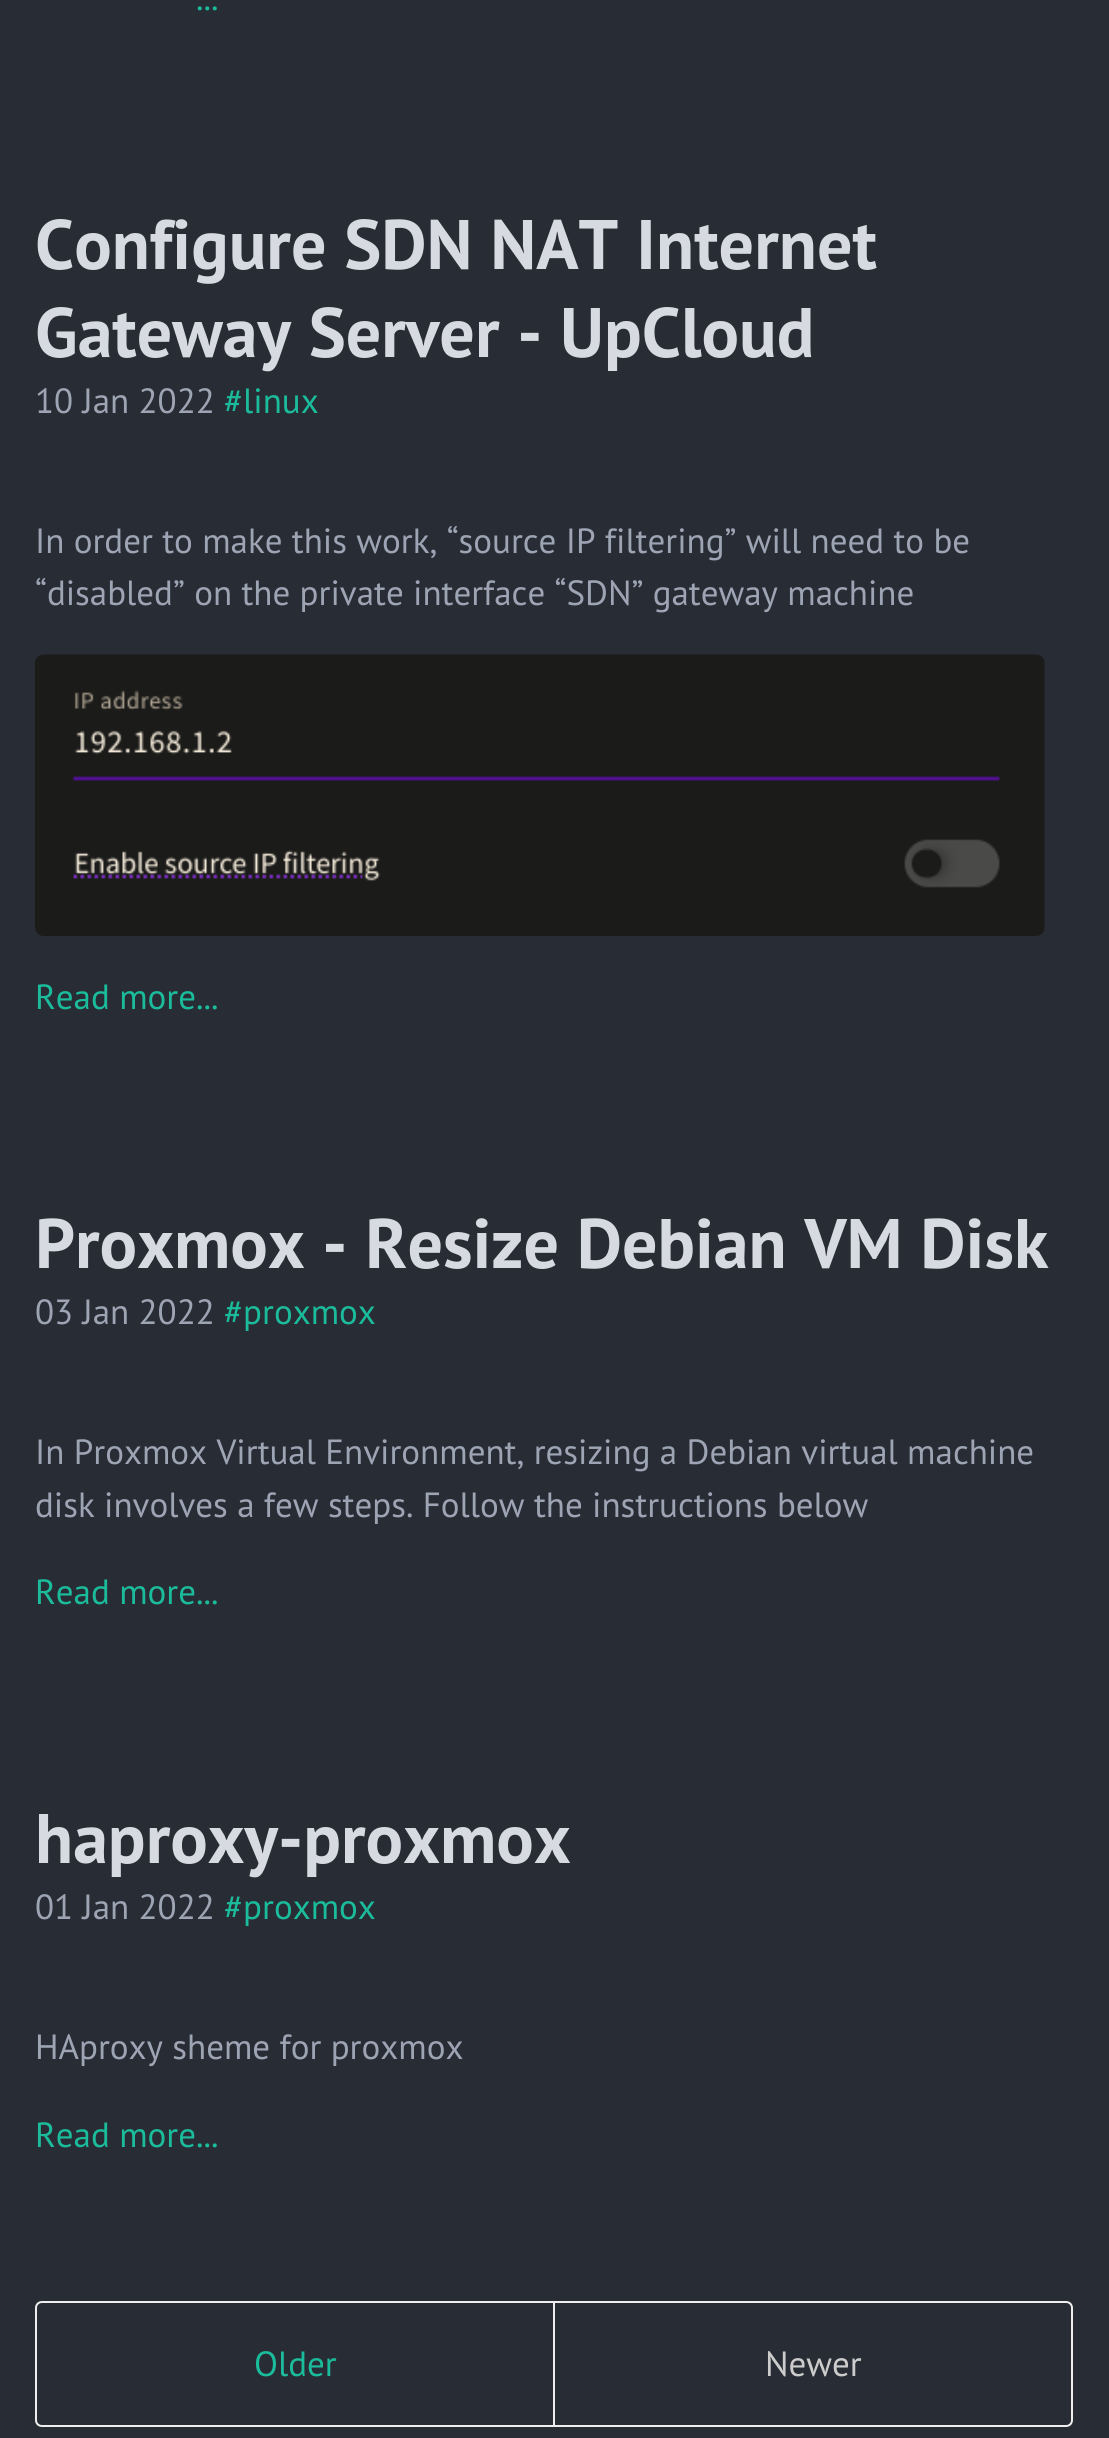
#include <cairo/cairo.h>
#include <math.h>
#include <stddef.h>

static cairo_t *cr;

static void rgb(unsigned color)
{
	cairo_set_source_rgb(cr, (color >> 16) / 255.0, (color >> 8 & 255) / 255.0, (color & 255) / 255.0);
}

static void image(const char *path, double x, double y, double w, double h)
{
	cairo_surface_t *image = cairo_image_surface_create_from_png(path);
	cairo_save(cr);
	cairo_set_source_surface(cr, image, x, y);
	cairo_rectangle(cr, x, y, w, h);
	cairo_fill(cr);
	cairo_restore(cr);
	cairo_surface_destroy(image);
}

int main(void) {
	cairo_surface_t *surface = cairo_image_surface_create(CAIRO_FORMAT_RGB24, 1109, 2438);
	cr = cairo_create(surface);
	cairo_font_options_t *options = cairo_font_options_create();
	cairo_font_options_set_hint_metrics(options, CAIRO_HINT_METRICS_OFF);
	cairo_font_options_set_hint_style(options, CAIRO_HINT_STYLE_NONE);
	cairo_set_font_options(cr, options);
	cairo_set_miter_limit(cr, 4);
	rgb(0x282c34);
	cairo_paint(cr);
	image("img/1.png", 35, 654, 1010, 282);
	cairo_new_path(cr);
	cairo_move_to(cr, 42, 2302);
	cairo_line_to(cr, 554, 2302);
	cairo_line_to(cr, 554, 2426);
	cairo_line_to(cr, 42, 2426);
	cairo_curve_to(cr, 38.5, 2426, 36, 2423.5, 36, 2420);
	cairo_line_to(cr, 36, 2308);
	cairo_curve_to(cr, 36, 2304.5, 38.5, 2302, 42, 2302);
	cairo_close_path(cr);
	rgb(0xeeeeee);
	cairo_stroke(cr);
	cairo_new_path(cr);
	cairo_move_to(cr, 554, 2302);
	cairo_line_to(cr, 1066, 2302);
	cairo_curve_to(cr, 1069.5, 2302, 1072, 2304.5, 1072, 2308);
	cairo_line_to(cr, 1072, 2420);
	cairo_curve_to(cr, 1072, 2423.5, 1069.5, 2426, 1066, 2426);
	cairo_line_to(cr, 554, 2426);
	cairo_close_path(cr);
	cairo_stroke(cr);
	cairo_select_font_face(cr, "PT Sans", CAIRO_FONT_SLANT_NORMAL, CAIRO_FONT_WEIGHT_NORMAL);
	cairo_set_font_size(cr, 35);
	rgb(0x1bbc9b);
	cairo_move_to(cr, 196, 10);
	cairo_show_text(cr, "...");
	cairo_select_font_face(cr, "PT Sans", CAIRO_FONT_SLANT_NORMAL, CAIRO_FONT_WEIGHT_BOLD);
	cairo_set_font_size(cr, 70);
	rgb(0xd7dae0);
	cairo_move_to(cr, 35, 269);
	cairo_show_text(cr, "Configure SDN NAT Internet");
	cairo_move_to(cr, 35, 357);
	cairo_show_text(cr, "Gateway Server - UpCloud");
	cairo_select_font_face(cr, "PT Sans", CAIRO_FONT_SLANT_NORMAL, CAIRO_FONT_WEIGHT_NORMAL);
	cairo_set_font_size(cr, 35);
	rgb(0x9da5b4);
	cairo_move_to(cr, 35, 413);
	cairo_show_text(cr, "10 Jan 2022");
	rgb(0x1bbc9b);
	cairo_move_to(cr, 224, 413);
	cairo_show_text(cr, "#linux");
	rgb(0x9da5b4);
	cairo_move_to(cr, 35, 553);
	cairo_show_text(cr, "In order to make this work, “source IP filtering” will need to be");
	cairo_move_to(cr, 35, 605);
	cairo_show_text(cr, "“disabled” on the private interface “SDN” gateway machine");
	rgb(0x1bbc9b);
	cairo_move_to(cr, 35, 1009);
	cairo_show_text(cr, "Read more...");
	cairo_select_font_face(cr, "PT Sans", CAIRO_FONT_SLANT_NORMAL, CAIRO_FONT_WEIGHT_BOLD);
	cairo_set_font_size(cr, 70);
	rgb(0xd7dae0);
	cairo_move_to(cr, 35, 1268);
	cairo_show_text(cr, "Proxmox - Resize Debian VM Disk");
	cairo_select_font_face(cr, "PT Sans", CAIRO_FONT_SLANT_NORMAL, CAIRO_FONT_WEIGHT_NORMAL);
	cairo_set_font_size(cr, 35);
	rgb(0x9da5b4);
	cairo_move_to(cr, 35, 1324);
	cairo_show_text(cr, "03 Jan 2022");
	rgb(0x1bbc9b);
	cairo_move_to(cr, 224, 1324);
	cairo_show_text(cr, "#proxmox");
	rgb(0x9da5b4);
	cairo_move_to(cr, 35, 1464);
	cairo_show_text(cr, "In Proxmox Virtual Environment, resizing a Debian virtual machine");
	cairo_move_to(cr, 35, 1517);
	cairo_show_text(cr, "disk involves a few steps. Follow the instructions below");
	rgb(0x1bbc9b);
	cairo_move_to(cr, 35, 1604);
	cairo_show_text(cr, "Read more...");
	cairo_select_font_face(cr, "PT Sans", CAIRO_FONT_SLANT_NORMAL, CAIRO_FONT_WEIGHT_BOLD);
	cairo_set_font_size(cr, 70);
	rgb(0xd7dae0);
	cairo_move_to(cr, 35, 1863);
	cairo_show_text(cr, "haproxy-proxmox");
	cairo_select_font_face(cr, "PT Sans", CAIRO_FONT_SLANT_NORMAL, CAIRO_FONT_WEIGHT_NORMAL);
	cairo_set_font_size(cr, 35);
	rgb(0x9da5b4);
	cairo_move_to(cr, 35, 1919);
	cairo_show_text(cr, "01 Jan 2022");
	rgb(0x1bbc9b);
	cairo_move_to(cr, 224, 1919);
	cairo_show_text(cr, "#proxmox");
	rgb(0x9da5b4);
	cairo_move_to(cr, 35, 2059);
	cairo_show_text(cr, "HAproxy sheme for proxmox");
	rgb(0x1bbc9b);
	cairo_move_to(cr, 35, 2147);
	cairo_show_text(cr, "Read more...");
	cairo_move_to(cr, 254, 2376);
	cairo_show_text(cr, "Older");
	rgb(0xcccccc);
	cairo_move_to(cr, 765, 2376);
	cairo_show_text(cr, "Newer");
	cairo_surface_write_to_png(surface, "page.png");
	cairo_font_options_destroy(options);
	cairo_destroy(cr);
	cairo_surface_destroy(surface);
	return 0;
}
